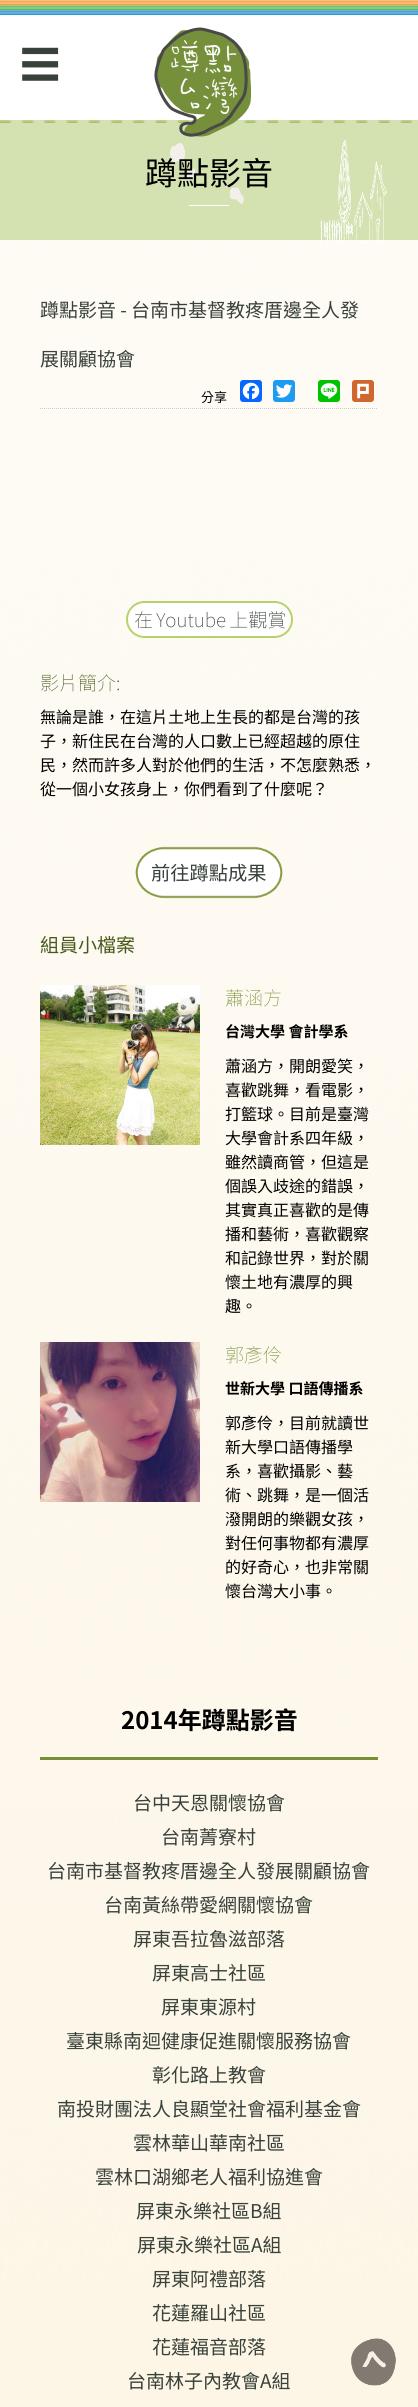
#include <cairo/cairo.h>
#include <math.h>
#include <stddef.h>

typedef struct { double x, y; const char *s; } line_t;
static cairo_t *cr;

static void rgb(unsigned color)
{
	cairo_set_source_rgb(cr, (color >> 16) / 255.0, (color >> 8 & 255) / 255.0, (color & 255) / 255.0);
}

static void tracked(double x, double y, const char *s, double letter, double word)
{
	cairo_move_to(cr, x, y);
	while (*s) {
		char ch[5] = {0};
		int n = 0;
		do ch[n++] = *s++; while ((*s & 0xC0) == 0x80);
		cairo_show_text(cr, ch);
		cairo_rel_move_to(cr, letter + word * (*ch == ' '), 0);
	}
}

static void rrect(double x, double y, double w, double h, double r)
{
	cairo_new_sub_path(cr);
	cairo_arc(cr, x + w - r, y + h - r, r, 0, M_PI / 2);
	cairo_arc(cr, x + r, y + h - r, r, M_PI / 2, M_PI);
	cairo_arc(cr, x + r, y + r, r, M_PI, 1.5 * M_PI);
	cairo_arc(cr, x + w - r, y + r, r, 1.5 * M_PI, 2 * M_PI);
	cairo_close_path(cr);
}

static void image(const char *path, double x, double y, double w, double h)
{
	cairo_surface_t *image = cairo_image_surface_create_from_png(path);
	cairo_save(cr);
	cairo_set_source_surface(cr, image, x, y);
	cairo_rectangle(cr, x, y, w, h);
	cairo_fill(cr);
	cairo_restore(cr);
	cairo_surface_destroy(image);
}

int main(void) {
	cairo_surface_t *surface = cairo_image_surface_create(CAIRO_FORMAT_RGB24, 418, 2407);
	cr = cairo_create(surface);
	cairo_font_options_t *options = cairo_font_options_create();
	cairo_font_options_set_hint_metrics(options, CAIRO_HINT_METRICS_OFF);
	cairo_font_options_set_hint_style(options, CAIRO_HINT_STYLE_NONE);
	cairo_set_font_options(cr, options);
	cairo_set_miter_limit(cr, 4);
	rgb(0xffffff);
	cairo_paint(cr);
	image("img/1.png", 0, 0, 418, 15);
	image("img/2.png", 0, 240, 418, 2167);
	image("img/3.png", 0, 120, 418, 126);
	image("img/13.png", 0, 120, 413, 3);
	image("img/4.png", 154, 27, 97, 110);
	rgb(0xffffff);
	cairo_rectangle(cr, 189, 205, 40, 1);
	cairo_fill(cr);
	cairo_new_path(cr);
	cairo_move_to(cr, 40, 408.5);
	cairo_line_to(cr, 378, 408.5);
	rgb(0xcccccc);
	cairo_set_line_width(cr, 1);
	cairo_set_dash(cr, (double[]){1, 1}, 2, 0);
	cairo_stroke(cr);
	rgb(0x0866ff);
	rrect(240, 380, 22, 22, 3);
	cairo_fill(cr);
	image("img/5.png", 242, 382, 18, 18);
	rgb(0x1d9bf0);
	rrect(273, 380, 22, 22, 3);
	cairo_fill(cr);
	image("img/6.png", 276, 384, 16, 14);
	rgb(0x00c300);
	rrect(318, 380, 22, 22, 3);
	cairo_fill(cr);
	image("img/7.png", 320, 383, 18, 16);
	rgb(0xcf682f);
	rrect(352, 380, 22, 22, 3);
	cairo_fill(cr);
	image("img/8.png", 357, 383, 12, 16);
	image("img/9.png", 126, 601, 167, 37);
	image("img/10.png", 135, 846, 148, 53);
	image("img/11.png", 40, 985, 160, 160);
	image("img/12.png", 40, 1342, 160, 160);
	rgb(0x779036);
	cairo_rectangle(cr, 40, 1757, 338, 3);
	cairo_fill(cr);
	image("img/14.png", 351, 2338, 45, 48);
	cairo_select_font_face(cr, "WenQuanYi Zen Hei Medium", CAIRO_FONT_SLANT_NORMAL, CAIRO_FONT_WEIGHT_NORMAL);
	cairo_set_font_size(cr, 40);
	rgb(0x38413a);
	cairo_move_to(cr, 20, 79);
	cairo_show_text(cr, "☰");
	cairo_select_font_face(cr, "Noto Sans TC", CAIRO_FONT_SLANT_NORMAL, CAIRO_FONT_WEIGHT_NORMAL);
	cairo_set_font_size(cr, 32);
	rgb(0x000000);
	cairo_move_to(cr, 145, 185);
	cairo_show_text(cr, "蹲點影音");
	cairo_set_font_size(cr, 19);
	rgb(0x38413a);
	cairo_move_to(cr, 40, 317);
	cairo_show_text(cr, "蹲點影音 - 台南市基督教疼厝邊全人發");
	cairo_move_to(cr, 40, 366);
	cairo_show_text(cr, "展關顧協會");
	cairo_set_font_size(cr, 13);
	rgb(0x000000);
	cairo_move_to(cr, 201, 402);
	cairo_show_text(cr, "分享");
	cairo_select_font_face(cr, "Noto Sans TC Thin", CAIRO_FONT_SLANT_NORMAL, CAIRO_FONT_WEIGHT_NORMAL);
	cairo_set_font_size(cr, 19);
	rgb(0x38413a);
	tracked(134, 627, "在 Youtube 上觀賞", 0, -1);
	rgb(0x485a1a);
	cairo_move_to(cr, 40, 690);
	cairo_show_text(cr, "影片簡介:");
	cairo_select_font_face(cr, "Noto Sans TC", CAIRO_FONT_SLANT_NORMAL, CAIRO_FONT_WEIGHT_NORMAL);
	cairo_set_font_size(cr, 16);
	rgb(0x000000);
	{
		static const line_t items[] = {
			{40, 723, "無論是誰，在這片土地上生長的都是台灣的孩"},
			{40, 747, "子，新住民在台灣的人口數上已經超越的原住"},
			{40, 771, "民，然而許多人對於他們的生活，不怎麼熟悉，"},
			{40, 795, "從一個小女孩身上，你們看到了什麼呢？"},
		};
		for (size_t i = 0; i < sizeof items / sizeof *items; i++) {
			cairo_move_to(cr, items[i].x, items[i].y);
			cairo_show_text(cr, items[i].s);
		}
	}
	cairo_set_font_size(cr, 19.25);
	rgb(0x38413a);
	cairo_move_to(cr, 151, 880);
	cairo_show_text(cr, "前往蹲點成果");
	cairo_set_font_size(cr, 19);
	rgb(0x485a1a);
	cairo_move_to(cr, 40, 952);
	cairo_show_text(cr, "組員小檔案");
	cairo_select_font_face(cr, "Noto Sans TC Thin", CAIRO_FONT_SLANT_NORMAL, CAIRO_FONT_WEIGHT_NORMAL);
	rgb(0x779036);
	cairo_move_to(cr, 225, 1005);
	cairo_show_text(cr, "蕭涵方");
	cairo_select_font_face(cr, "Noto Sans TC", CAIRO_FONT_SLANT_NORMAL, CAIRO_FONT_WEIGHT_BOLD);
	cairo_set_font_size(cr, 15);
	rgb(0x000000);
	cairo_move_to(cr, 225, 1037);
	cairo_show_text(cr, "台灣大學 會計學系");
	cairo_select_font_face(cr, "Noto Sans TC", CAIRO_FONT_SLANT_NORMAL, CAIRO_FONT_WEIGHT_NORMAL);
	cairo_set_font_size(cr, 16);
	{
		static const line_t items[] = {
			{225, 1072, "蕭涵方，開朗愛笑，"},
			{225, 1096, "喜歡跳舞，看電影，"},
			{225, 1120, "打籃球。目前是臺灣"},
			{225, 1144, "大學會計系四年級，"},
			{225, 1168, "雖然讀商管，但這是"},
			{225, 1192, "個誤入歧途的錯誤，"},
			{225, 1216, "其實真正喜歡的是傳"},
			{225, 1240, "播和藝術，喜歡觀察"},
			{225, 1264, "和記錄世界，對於關"},
			{225, 1288, "懷土地有濃厚的興"},
			{225, 1312, "趣。"},
		};
		for (size_t i = 0; i < sizeof items / sizeof *items; i++) {
			cairo_move_to(cr, items[i].x, items[i].y);
			cairo_show_text(cr, items[i].s);
		}
	}
	cairo_select_font_face(cr, "Noto Sans TC Thin", CAIRO_FONT_SLANT_NORMAL, CAIRO_FONT_WEIGHT_NORMAL);
	cairo_set_font_size(cr, 19);
	rgb(0x779036);
	cairo_move_to(cr, 225, 1362);
	cairo_show_text(cr, "郭彥伶");
	cairo_select_font_face(cr, "Noto Sans TC", CAIRO_FONT_SLANT_NORMAL, CAIRO_FONT_WEIGHT_BOLD);
	cairo_set_font_size(cr, 15);
	rgb(0x000000);
	cairo_move_to(cr, 225, 1394);
	cairo_show_text(cr, "世新大學 口語傳播系");
	cairo_select_font_face(cr, "Noto Sans TC", CAIRO_FONT_SLANT_NORMAL, CAIRO_FONT_WEIGHT_NORMAL);
	cairo_set_font_size(cr, 16);
	{
		static const line_t items[] = {
			{225, 1429, "郭彥伶，目前就讀世"},
			{225, 1453, "新大學口語傳播學"},
			{225, 1477, "系，喜歡攝影、藝"},
			{225, 1501, "術、跳舞，是一個活"},
			{225, 1525, "潑開朗的樂觀女孩，"},
			{225, 1549, "對任何事物都有濃厚"},
			{225, 1573, "的好奇心，也非常關"},
			{225, 1597, "懷台灣大小事。"},
		};
		for (size_t i = 0; i < sizeof items / sizeof *items; i++) {
			cairo_move_to(cr, items[i].x, items[i].y);
			cairo_show_text(cr, items[i].s);
		}
	}
	cairo_select_font_face(cr, "Noto Sans TC", CAIRO_FONT_SLANT_NORMAL, CAIRO_FONT_WEIGHT_BOLD);
	cairo_set_font_size(cr, 24);
	cairo_move_to(cr, 121, 1729);
	cairo_show_text(cr, "2014年蹲點影音");
	cairo_select_font_face(cr, "Noto Sans TC", CAIRO_FONT_SLANT_NORMAL, CAIRO_FONT_WEIGHT_NORMAL);
	cairo_set_font_size(cr, 19);
	rgb(0x38413a);
	{
		static const line_t items[] = {
			{133, 1810, "台中天恩關懷協會"},
			{161, 1844, "台南菁寮村"},
			{47, 1878, "台南市基督教疼厝邊全人發展關顧協會"},
			{104, 1912, "台南黃絲帶愛網關懷協會"},
			{133, 1946, "屏東吾拉魯滋部落"},
			{152, 1980, "屏東高士社區"},
			{161, 2014, "屏東東源村"},
			{66, 2048, "臺東縣南迴健康促進關懷服務協會"},
			{152, 2082, "彰化路上教會"},
			{57, 2116, "南投財團法人良顯堂社會福利基金會"},
			{133, 2150, "雲林華山華南社區"},
			{95, 2184, "雲林口湖鄉老人福利協進會"},
			{136, 2218, "屏東永樂社區B組"},
			{137, 2252, "屏東永樂社區A組"},
			{152, 2286, "屏東阿禮部落"},
			{152, 2320, "花蓮羅山社區"},
			{152, 2354, "花蓮福音部落"},
			{127, 2388, "台南林子內教會A組"},
		};
		for (size_t i = 0; i < sizeof items / sizeof *items; i++) {
			cairo_move_to(cr, items[i].x, items[i].y);
			cairo_show_text(cr, items[i].s);
		}
	}
	cairo_surface_write_to_png(surface, "page.png");
	cairo_font_options_destroy(options);
	cairo_destroy(cr);
	cairo_surface_destroy(surface);
	return 0;
}
